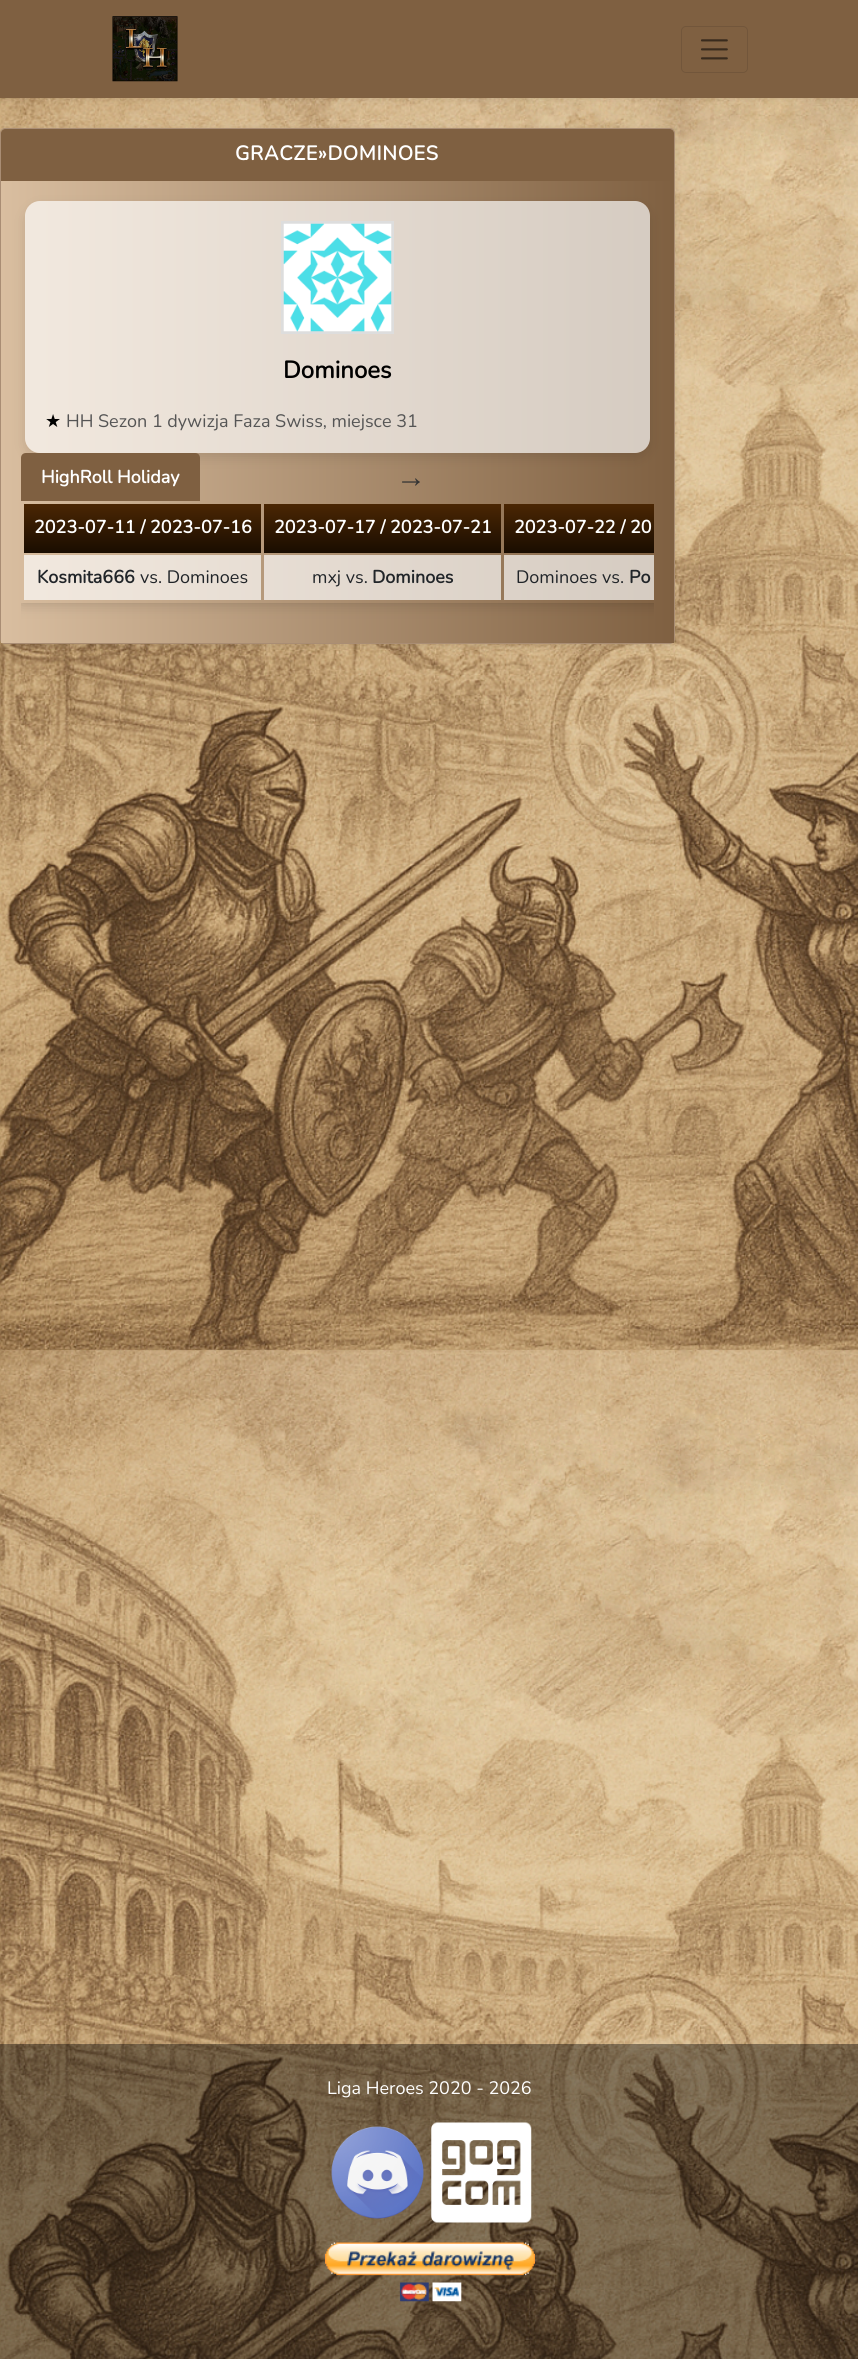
#include <cairo/cairo.h>
#include <math.h>
#include <stddef.h>

typedef struct { double x, y; const char *s; } line_t;
static cairo_t *cr;

static void rgb(unsigned color)
{
	cairo_set_source_rgb(cr, (color >> 16) / 255.0, (color >> 8 & 255) / 255.0, (color & 255) / 255.0);
}

static void tracked(double x, double y, const char *s, double letter, double word)
{
	cairo_move_to(cr, x, y);
	while (*s) {
		char ch[5] = {0};
		int n = 0;
		do ch[n++] = *s++; while ((*s & 0xC0) == 0x80);
		cairo_show_text(cr, ch);
		cairo_rel_move_to(cr, letter + word * (*ch == ' '), 0);
	}
}

static void rrect(double x, double y, double w, double h, double r)
{
	cairo_new_sub_path(cr);
	cairo_arc(cr, x + w - r, y + h - r, r, 0, M_PI / 2);
	cairo_arc(cr, x + r, y + h - r, r, M_PI / 2, M_PI);
	cairo_arc(cr, x + r, y + r, r, M_PI, 1.5 * M_PI);
	cairo_arc(cr, x + w - r, y + r, r, 1.5 * M_PI, 2 * M_PI);
	cairo_close_path(cr);
}

static void soft_shadow(double x, double y, double w, double h, double r, double blur, double alpha)
{
	cairo_push_group_with_content(cr, CAIRO_CONTENT_ALPHA);
	cairo_set_operator(cr, CAIRO_OPERATOR_SOURCE);
	for (int i = 15; i >= -15 && fmin(w, h) + blur * i / 3 > 0; i -= 2) {
		double e = blur * i / 6;
		cairo_set_source_rgba(cr, 0, 0, 0, alpha * erfc((i - 1) / 8.5) / 2);
		rrect(x - e, y - e, w + 2 * e, h + 2 * e, fmax(0, fmin(r + e + blur * .6, fmin(w, h) / 2 + e)));
		cairo_fill(cr);
	}
	cairo_pattern_t *soft = cairo_pop_group(cr);
	cairo_mask(cr, soft);
	cairo_pattern_destroy(soft);
}

static void image(const char *path, double x, double y, double w, double h)
{
	cairo_surface_t *image = cairo_image_surface_create_from_png(path);
	cairo_save(cr);
	cairo_set_source_surface(cr, image, x, y);
	cairo_rectangle(cr, x, y, w, h);
	cairo_fill(cr);
	cairo_restore(cr);
	cairo_surface_destroy(image);
}

int main(void) {
	cairo_surface_t *surface = cairo_image_surface_create(CAIRO_FORMAT_RGB24, 858, 2359);
	cr = cairo_create(surface);
	cairo_font_options_t *options = cairo_font_options_create();
	cairo_font_options_set_hint_metrics(options, CAIRO_HINT_METRICS_OFF);
	cairo_font_options_set_hint_style(options, CAIRO_HINT_STYLE_NONE);
	cairo_set_font_options(cr, options);
	cairo_set_miter_limit(cr, 4);
	cairo_pattern_t *gradient;
	rgb(0xffffff);
	cairo_paint(cr);
	image("img/1.png", 0, 98, 858, 2261);
	rgb(0x000000);
	soft_shadow(0, 3, 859, 97, 0, 2.5, 0.07);
	rgb(0x7f6041);
	cairo_rectangle(cr, 0, 0, 858, 98);
	cairo_fill(cr);
	image("img/2.png", 112, 16, 66, 66);
	rrect(681.5, 26.5, 66, 46, 4.5);
	rgb(0x72563b);
	cairo_set_line_width(cr, 1);
	cairo_stroke(cr);
	image("img/3.png", 701, 39, 27, 21);
	cairo_save(cr);
	cairo_set_fill_rule(cr, CAIRO_FILL_RULE_EVEN_ODD);
	cairo_new_path(cr);
	cairo_move_to(cr, 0, 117);
	cairo_line_to(cr, 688, 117);
	cairo_line_to(cr, 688, 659);
	cairo_line_to(cr, 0, 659);
	cairo_close_path(cr);
	cairo_move_to(cr, 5, 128);
	cairo_line_to(cr, 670, 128);
	cairo_curve_to(cr, 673, 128, 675, 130, 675, 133);
	cairo_line_to(cr, 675, 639);
	cairo_curve_to(cr, 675, 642, 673, 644, 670, 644);
	cairo_line_to(cr, 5, 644);
	cairo_curve_to(cr, 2, 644, 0, 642, 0, 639);
	cairo_line_to(cr, 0, 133);
	cairo_curve_to(cr, 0, 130, 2, 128, 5, 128);
	cairo_close_path(cr);
	cairo_clip(cr);
	rgb(0x000000);
	soft_shadow(0, 130, 675, 516, 5, 4, 0.1);
	cairo_restore(cr);
	rrect(0.5, 128.5, 674, 515, 4.5);
	rgb(0xa98d74);
	cairo_stroke(cr);
	rgb(0x7f6041);
	cairo_new_path(cr);
	cairo_move_to(cr, 5, 129);
	cairo_line_to(cr, 670, 129);
	cairo_curve_to(cr, 672, 129, 674, 131, 674, 133);
	cairo_line_to(cr, 674, 181);
	cairo_line_to(cr, 1, 181);
	cairo_line_to(cr, 1, 133);
	cairo_curve_to(cr, 1, 131, 3, 129, 5, 129);
	cairo_close_path(cr);
	cairo_fill(cr);
	gradient = cairo_pattern_create_linear(1.2, 412, 674, 412);
	cairo_pattern_add_color_stop_rgba(gradient, 0, 0.851, 0.745, 0.627, 1);
	cairo_pattern_add_color_stop_rgba(gradient, 1, 0.498, 0.376, 0.255, 1);
	cairo_set_source(cr, gradient);
	cairo_pattern_destroy(gradient);
	cairo_rectangle(cr, 1, 181, 673, 462);
	cairo_fill(cr);
	cairo_save(cr);
	cairo_set_fill_rule(cr, CAIRO_FILL_RULE_EVEN_ODD);
	cairo_new_path(cr);
	cairo_move_to(cr, 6, 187);
	cairo_line_to(cr, 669, 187);
	cairo_line_to(cr, 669, 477);
	cairo_line_to(cr, 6, 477);
	cairo_close_path(cr);
	cairo_move_to(cr, 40, 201);
	cairo_line_to(cr, 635, 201);
	cairo_curve_to(cr, 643.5, 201, 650, 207.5, 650, 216);
	cairo_line_to(cr, 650, 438);
	cairo_curve_to(cr, 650, 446.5, 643.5, 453, 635, 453);
	cairo_line_to(cr, 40, 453);
	cairo_curve_to(cr, 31.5, 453, 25, 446.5, 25, 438);
	cairo_line_to(cr, 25, 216);
	cairo_curve_to(cr, 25, 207.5, 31.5, 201, 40, 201);
	cairo_close_path(cr);
	cairo_clip(cr);
	rgb(0x000000);
	soft_shadow(25, 206, 625, 252, 15, 6, 0.1);
	cairo_restore(cr);
	cairo_set_source_rgba(cr, 1, 1, 1, 0.67);
	rrect(25, 201, 625, 252, 15);
	cairo_fill(cr);
	cairo_rectangle(cr, 282.5, 222.5, 110, 110);
	rgb(0xdddddd);
	cairo_set_line_width(cr, 3);
	cairo_stroke(cr);
	image("img/4.png", 283, 223, 109, 109);
	cairo_save(cr);
	cairo_rectangle(cr, 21, 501, 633, 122);
	cairo_clip(cr);
	cairo_set_fill_rule(cr, CAIRO_FILL_RULE_EVEN_ODD);
	cairo_new_path(cr);
	cairo_move_to(cr, 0, 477);
	cairo_line_to(cr, 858, 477);
	cairo_line_to(cr, 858, 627);
	cairo_line_to(cr, 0, 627);
	cairo_close_path(cr);
	cairo_move_to(cr, 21, 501);
	cairo_line_to(cr, 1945, 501);
	cairo_line_to(cr, 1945, 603);
	cairo_line_to(cr, 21, 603);
	cairo_close_path(cr);
	cairo_clip(cr);
	rgb(0x000000);
	soft_shadow(21, 501, 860, 102, 0, 7.5, 0.2);
	cairo_restore(cr);
	rgb(0x7f6041);
	cairo_new_path(cr);
	cairo_move_to(cr, 26, 453);
	cairo_line_to(cr, 195, 453);
	cairo_curve_to(cr, 198, 453, 200, 455, 200, 458);
	cairo_line_to(cr, 200, 501);
	cairo_line_to(cr, 21, 501);
	cairo_line_to(cr, 21, 458);
	cairo_curve_to(cr, 21, 455, 23, 453, 26, 453);
	cairo_close_path(cr);
	cairo_fill(cr);
	gradient = cairo_pattern_create_linear(143, 504, 143, 553);
	cairo_pattern_add_color_stop_rgba(gradient, 0, 0.294, 0.149, 0.012, 1);
	cairo_pattern_add_color_stop_rgba(gradient, 1, 0.098, 0.051, 0.004, 1);
	cairo_set_source(cr, gradient);
	cairo_pattern_destroy(gradient);
	cairo_rectangle(cr, 24, 504, 237, 49);
	cairo_fill(cr);
	gradient = cairo_pattern_create_linear(383, 504, 383, 553);
	cairo_pattern_add_color_stop_rgba(gradient, 0, 0.294, 0.149, 0.012, 1);
	cairo_pattern_add_color_stop_rgba(gradient, 1, 0.098, 0.051, 0.004, 1);
	cairo_set_source(cr, gradient);
	cairo_pattern_destroy(gradient);
	cairo_rectangle(cr, 264, 504, 237, 49);
	cairo_fill(cr);
	gradient = cairo_pattern_create_linear(623, 504, 623, 553);
	cairo_pattern_add_color_stop_rgba(gradient, 0, 0.294, 0.149, 0.012, 1);
	cairo_pattern_add_color_stop_rgba(gradient, 1, 0.098, 0.051, 0.004, 1);
	cairo_set_source(cr, gradient);
	cairo_pattern_destroy(gradient);
	cairo_rectangle(cr, 504, 504, 150, 49);
	cairo_fill(cr);
	cairo_set_source_rgba(cr, 1, 1, 1, 0.67);
	cairo_rectangle(cr, 24, 555, 237, 45);
	cairo_fill(cr);
	cairo_rectangle(cr, 264, 555, 237, 45);
	cairo_fill(cr);
	cairo_rectangle(cr, 504, 555, 150, 45);
	cairo_fill(cr);
	cairo_set_source_rgba(cr, 0, 0, 0, 0.4);
	cairo_rectangle(cr, 0, 2044, 858, 315);
	cairo_fill(cr);
	image("img/5.png", 331, 2126, 93, 93);
	image("img/6.png", 431, 2122, 101, 101);
	image("img/7.png", 325, 2242, 210, 60);
	cairo_select_font_face(cr, "Nunito", CAIRO_FONT_SLANT_NORMAL, CAIRO_FONT_WEIGHT_BOLD);
	cairo_set_font_size(cr, 20);
	rgb(0xffffff);
	tracked(235, 160, "GRACZE»DOMINOES", 0.6, 0);
	cairo_set_font_size(cr, 24);
	rgb(0x000000);
	cairo_move_to(cr, 283, 378);
	cairo_show_text(cr, "Dominoes");
	cairo_select_font_face(cr, "DejaVu Sans", CAIRO_FONT_SLANT_NORMAL, CAIRO_FONT_WEIGHT_NORMAL);
	cairo_set_font_size(cr, 18);
	cairo_move_to(cr, 45, 427);
	cairo_show_text(cr, "★");
	cairo_select_font_face(cr, "Nunito ExtraLight", CAIRO_FONT_SLANT_NORMAL, CAIRO_FONT_WEIGHT_NORMAL);
	rgb(0x555555);
	cairo_move_to(cr, 66, 427);
	cairo_show_text(cr, "HH Sezon 1 dywizja Faza Swiss, miejsce 31");
	cairo_select_font_face(cr, "Nunito", CAIRO_FONT_SLANT_NORMAL, CAIRO_FONT_WEIGHT_BOLD);
	rgb(0xffffff);
	cairo_move_to(cr, 41, 483);
	cairo_show_text(cr, "HighRoll Holiday");
	cairo_select_font_face(cr, "Liberation Sans", CAIRO_FONT_SLANT_NORMAL, CAIRO_FONT_WEIGHT_BOLD);
	cairo_set_font_size(cr, 30);
	rgb(0x333333);
	cairo_move_to(cr, 396, 487);
	cairo_show_text(cr, "→");
	cairo_select_font_face(cr, "Nunito", CAIRO_FONT_SLANT_NORMAL, CAIRO_FONT_WEIGHT_BOLD);
	cairo_set_font_size(cr, 18);
	rgb(0xffffff);
	{
		static const line_t items[] = {
			{34, 533, "2023-07-11 / 2023-07-16"},
			{274, 533, "2023-07-17 / 2023-07-21"},
			{514, 533, "2023-07-22 / 20"},
		};
		for (size_t i = 0; i < sizeof items / sizeof *items; i++) {
			cairo_move_to(cr, items[i].x, items[i].y);
			cairo_show_text(cr, items[i].s);
		}
	}
	rgb(0x212529);
	cairo_move_to(cr, 37, 583);
	cairo_show_text(cr, "Kosmita666");
	cairo_select_font_face(cr, "Nunito ExtraLight", CAIRO_FONT_SLANT_NORMAL, CAIRO_FONT_WEIGHT_NORMAL);
	cairo_move_to(cr, 140, 583);
	cairo_show_text(cr, "vs. Dominoes");
	cairo_move_to(cr, 312, 583);
	cairo_show_text(cr, "mxj vs.");
	cairo_select_font_face(cr, "Nunito", CAIRO_FONT_SLANT_NORMAL, CAIRO_FONT_WEIGHT_BOLD);
	cairo_move_to(cr, 372, 583);
	cairo_show_text(cr, "Dominoes");
	cairo_select_font_face(cr, "Nunito ExtraLight", CAIRO_FONT_SLANT_NORMAL, CAIRO_FONT_WEIGHT_NORMAL);
	cairo_move_to(cr, 516, 583);
	cairo_show_text(cr, "Dominoes vs.");
	cairo_select_font_face(cr, "Nunito", CAIRO_FONT_SLANT_NORMAL, CAIRO_FONT_WEIGHT_BOLD);
	cairo_move_to(cr, 629, 583);
	cairo_show_text(cr, "Po");
	cairo_select_font_face(cr, "Nunito ExtraLight", CAIRO_FONT_SLANT_NORMAL, CAIRO_FONT_WEIGHT_NORMAL);
	rgb(0xffffff);
	cairo_move_to(cr, 327, 2094);
	cairo_show_text(cr, "Liga Heroes 2020 - 2026");
	cairo_surface_write_to_png(surface, "page.png");
	cairo_font_options_destroy(options);
	cairo_destroy(cr);
	cairo_surface_destroy(surface);
	return 0;
}
